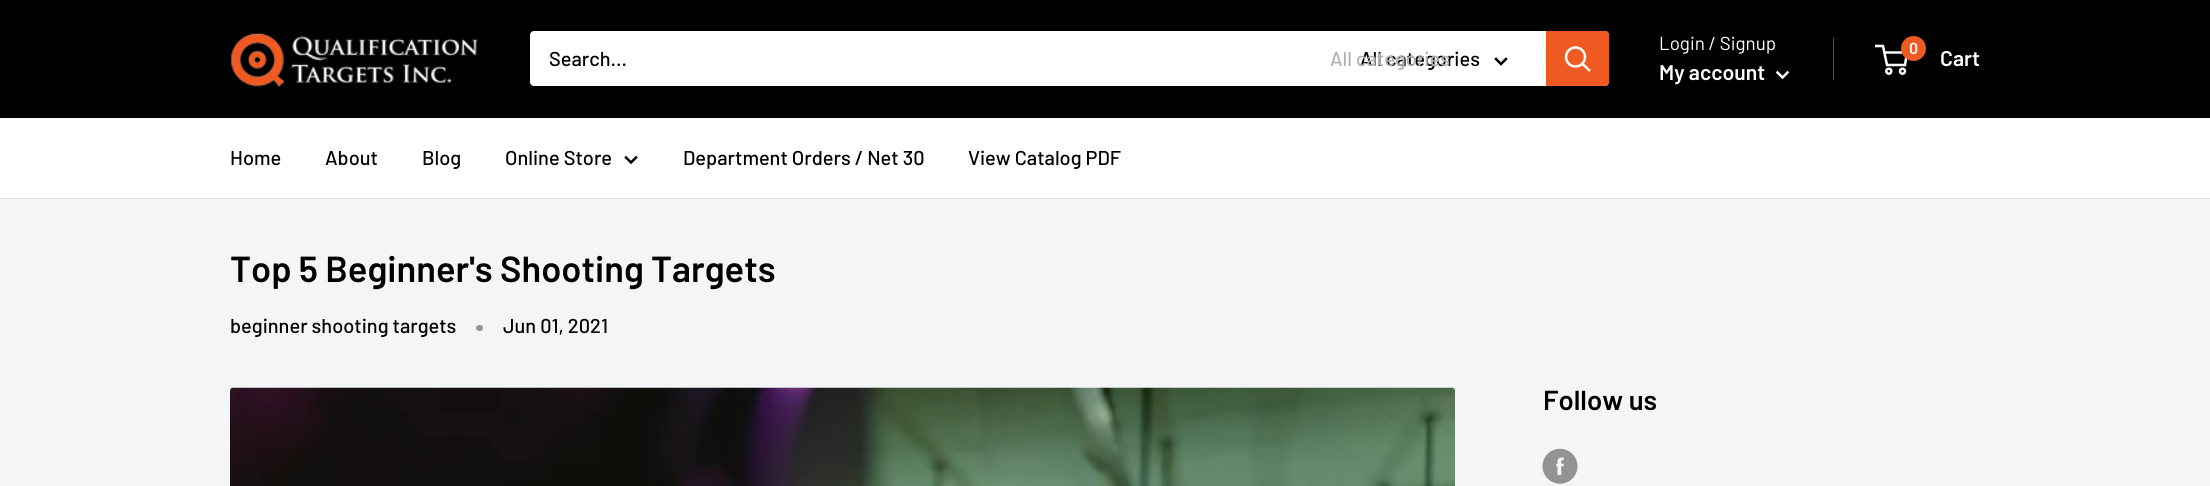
#include <cairo/cairo.h>
#include <math.h>
#include <stddef.h>

typedef struct { double x, y; const char *s; } line_t;
static cairo_t *cr;

static void rgb(unsigned color)
{
	cairo_set_source_rgb(cr, (color >> 16) / 255.0, (color >> 8 & 255) / 255.0, (color & 255) / 255.0);
}

static void rrect(double x, double y, double w, double h, double r)
{
	cairo_new_sub_path(cr);
	cairo_arc(cr, x + w - r, y + h - r, r, 0, M_PI / 2);
	cairo_arc(cr, x + r, y + h - r, r, M_PI / 2, M_PI);
	cairo_arc(cr, x + r, y + r, r, M_PI, 1.5 * M_PI);
	cairo_arc(cr, x + w - r, y + r, r, 1.5 * M_PI, 2 * M_PI);
	cairo_close_path(cr);
}

static void image(const char *path, double x, double y, double w, double h)
{
	cairo_surface_t *image = cairo_image_surface_create_from_png(path);
	cairo_save(cr);
	cairo_set_source_surface(cr, image, x, y);
	cairo_rectangle(cr, x, y, w, h);
	cairo_fill(cr);
	cairo_restore(cr);
	cairo_surface_destroy(image);
}

int main(void) {
	cairo_surface_t *surface = cairo_image_surface_create(CAIRO_FORMAT_RGB24, 2210, 486);
	cr = cairo_create(surface);
	cairo_font_options_t *options = cairo_font_options_create();
	cairo_font_options_set_hint_metrics(options, CAIRO_HINT_METRICS_OFF);
	cairo_font_options_set_hint_style(options, CAIRO_HINT_STYLE_NONE);
	cairo_set_font_options(cr, options);
	cairo_set_miter_limit(cr, 4);
	rgb(0xf3f5f6);
	cairo_paint(cr);
	rgb(0x000000);
	cairo_rectangle(cr, 0, 0, 2210, 118);
	cairo_fill(cr);
	image("img/1.png", 231, 33, 247, 54);
	rgb(0xffffff);
	rrect(530, 31, 1079, 55, 4);
	cairo_fill(cr);
	cairo_new_path(cr);
	cairo_move_to(cr, 1506, 59);
	cairo_line_to(cr, 1501, 64);
	cairo_line_to(cr, 1496, 59);
	rgb(0x000000);
	cairo_set_line_width(cr, 2.5);
	cairo_set_line_cap(cr, CAIRO_LINE_CAP_SQUARE);
	cairo_stroke(cr);
	rgb(0xef5a22);
	cairo_new_path(cr);
	cairo_move_to(cr, 1546, 31);
	cairo_line_to(cr, 1605, 31);
	cairo_curve_to(cr, 1607, 31, 1609, 33, 1609, 35);
	cairo_line_to(cr, 1609, 82);
	cairo_curve_to(cr, 1609, 84, 1607, 86, 1605, 86);
	cairo_line_to(cr, 1546, 86);
	cairo_close_path(cr);
	cairo_fill(cr);
	cairo_new_path(cr);
	cairo_move_to(cr, 1589, 70);
	cairo_line_to(cr, 1582.5, 64);
	rgb(0xffffff);
	cairo_stroke(cr);
	cairo_arc(cr, 1575.5, 57, 9.5, 0, 2 * M_PI);
	cairo_set_line_cap(cr, CAIRO_LINE_CAP_BUTT);
	cairo_stroke(cr);
	rgb(0x4d4d4d);
	cairo_rectangle(cr, 1833, 38, 1, 42);
	cairo_fill(cr);
	cairo_new_path(cr);
	cairo_move_to(cr, 1787.5, 72.5);
	cairo_line_to(cr, 1782.5, 77.5);
	cairo_line_to(cr, 1777.5, 72.5);
	rgb(0xffffff);
	cairo_set_line_cap(cr, CAIRO_LINE_CAP_SQUARE);
	cairo_stroke(cr);
	cairo_arc(cr, 1888.8, 71.2, 2.5, 0, 2 * M_PI);
	cairo_set_line_cap(cr, CAIRO_LINE_CAP_BUTT);
	cairo_stroke(cr);
	cairo_arc(cr, 1902.5, 71.2, 2.5, 0, 2 * M_PI);
	cairo_stroke(cr);
	cairo_new_path(cr);
	cairo_move_to(cr, 1884, 52.5);
	cairo_line_to(cr, 1907, 52.5);
	cairo_line_to(cr, 1905, 65);
	cairo_line_to(cr, 1887, 65);
	cairo_line_to(cr, 1883, 46);
	cairo_line_to(cr, 1875, 46);
	cairo_stroke(cr);
	rgb(0xef5a22);
	cairo_arc(cr, 1913.5, 48.5, 12.5, 0, 2 * M_PI);
	cairo_fill(cr);
	rgb(0xffffff);
	cairo_rectangle(cr, 0, 118, 2210, 80);
	cairo_fill(cr);
	rgb(0xe1e3e4);
	cairo_rectangle(cr, 0, 198, 2210, 1);
	cairo_fill(cr);
	cairo_new_path(cr);
	cairo_move_to(cr, 636, 157.5);
	cairo_line_to(cr, 631, 162.5);
	cairo_line_to(cr, 626, 157.5);
	rgb(0x000000);
	cairo_set_line_cap(cr, CAIRO_LINE_CAP_SQUARE);
	cairo_stroke(cr);
	rgb(0x929394);
	rrect(476, 325, 7, 6, 3);
	cairo_fill(cr);
	image("img/2.png", 230, 387, 1225, 99);
	image("img/3.png", 1542, 448, 36, 36);
	cairo_select_font_face(cr, "Barlow Medium", CAIRO_FONT_SLANT_NORMAL, CAIRO_FONT_WEIGHT_NORMAL);
	cairo_set_font_size(cr, 20);
	rgb(0x000000);
	cairo_move_to(cr, 549, 66);
	cairo_show_text(cr, "Search...");
	cairo_move_to(cr, 1360, 66);
	cairo_show_text(cr, "All categories");
	rgb(0xb2b2b2);
	cairo_move_to(cr, 1330, 66);
	cairo_show_text(cr, "All categories");
	cairo_select_font_face(cr, "Barlow", CAIRO_FONT_SLANT_NORMAL, CAIRO_FONT_WEIGHT_NORMAL);
	cairo_set_font_size(cr, 18.75);
	rgb(0xffffff);
	cairo_move_to(cr, 1659, 50);
	cairo_show_text(cr, "Login / Signup");
	cairo_select_font_face(cr, "Barlow SemiBold", CAIRO_FONT_SLANT_NORMAL, CAIRO_FONT_WEIGHT_NORMAL);
	cairo_set_font_size(cr, 21.25);
	cairo_move_to(cr, 1659, 80);
	cairo_show_text(cr, "My account");
	cairo_set_font_size(cr, 16);
	cairo_move_to(cr, 1909, 54);
	cairo_show_text(cr, "0");
	cairo_set_font_size(cr, 21.25);
	cairo_move_to(cr, 1940, 66);
	cairo_show_text(cr, "Cart");
	cairo_select_font_face(cr, "Barlow Medium", CAIRO_FONT_SLANT_NORMAL, CAIRO_FONT_WEIGHT_NORMAL);
	cairo_set_font_size(cr, 20);
	rgb(0x000000);
	{
		static const line_t items[] = {
			{230, 165, "Home"},
			{325, 165, "About"},
			{422, 165, "Blog"},
			{505, 165, "Online Store"},
			{683, 165, "Department Orders / Net 30"},
			{968, 165, "View Catalog PDF"},
		};
		for (size_t i = 0; i < sizeof items / sizeof *items; i++) {
			cairo_move_to(cr, items[i].x, items[i].y);
			cairo_show_text(cr, items[i].s);
		}
	}
	cairo_select_font_face(cr, "Barlow SemiBold", CAIRO_FONT_SLANT_NORMAL, CAIRO_FONT_WEIGHT_NORMAL);
	cairo_set_font_size(cr, 36.25);
	cairo_move_to(cr, 230, 282);
	cairo_show_text(cr, "Top 5 Beginner's Shooting Targets");
	cairo_select_font_face(cr, "Barlow Medium", CAIRO_FONT_SLANT_NORMAL, CAIRO_FONT_WEIGHT_NORMAL);
	cairo_set_font_size(cr, 20);
	cairo_move_to(cr, 230, 333);
	cairo_show_text(cr, "beginner shooting targets");
	cairo_move_to(cr, 503, 333);
	cairo_show_text(cr, "Jun 01, 2021");
	cairo_select_font_face(cr, "Barlow SemiBold", CAIRO_FONT_SLANT_NORMAL, CAIRO_FONT_WEIGHT_NORMAL);
	cairo_set_font_size(cr, 27.5);
	cairo_move_to(cr, 1543, 410);
	cairo_show_text(cr, "Follow us");
	cairo_surface_write_to_png(surface, "page.png");
	cairo_font_options_destroy(options);
	cairo_destroy(cr);
	cairo_surface_destroy(surface);
	return 0;
}
